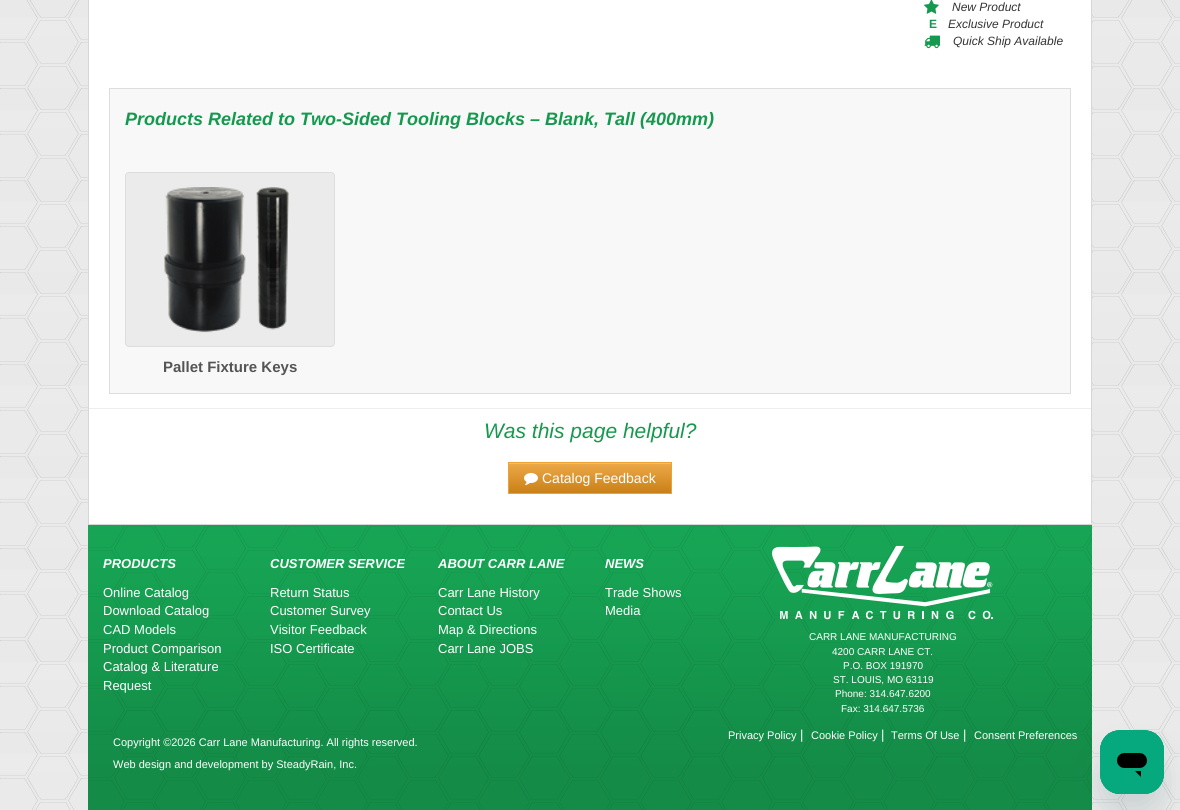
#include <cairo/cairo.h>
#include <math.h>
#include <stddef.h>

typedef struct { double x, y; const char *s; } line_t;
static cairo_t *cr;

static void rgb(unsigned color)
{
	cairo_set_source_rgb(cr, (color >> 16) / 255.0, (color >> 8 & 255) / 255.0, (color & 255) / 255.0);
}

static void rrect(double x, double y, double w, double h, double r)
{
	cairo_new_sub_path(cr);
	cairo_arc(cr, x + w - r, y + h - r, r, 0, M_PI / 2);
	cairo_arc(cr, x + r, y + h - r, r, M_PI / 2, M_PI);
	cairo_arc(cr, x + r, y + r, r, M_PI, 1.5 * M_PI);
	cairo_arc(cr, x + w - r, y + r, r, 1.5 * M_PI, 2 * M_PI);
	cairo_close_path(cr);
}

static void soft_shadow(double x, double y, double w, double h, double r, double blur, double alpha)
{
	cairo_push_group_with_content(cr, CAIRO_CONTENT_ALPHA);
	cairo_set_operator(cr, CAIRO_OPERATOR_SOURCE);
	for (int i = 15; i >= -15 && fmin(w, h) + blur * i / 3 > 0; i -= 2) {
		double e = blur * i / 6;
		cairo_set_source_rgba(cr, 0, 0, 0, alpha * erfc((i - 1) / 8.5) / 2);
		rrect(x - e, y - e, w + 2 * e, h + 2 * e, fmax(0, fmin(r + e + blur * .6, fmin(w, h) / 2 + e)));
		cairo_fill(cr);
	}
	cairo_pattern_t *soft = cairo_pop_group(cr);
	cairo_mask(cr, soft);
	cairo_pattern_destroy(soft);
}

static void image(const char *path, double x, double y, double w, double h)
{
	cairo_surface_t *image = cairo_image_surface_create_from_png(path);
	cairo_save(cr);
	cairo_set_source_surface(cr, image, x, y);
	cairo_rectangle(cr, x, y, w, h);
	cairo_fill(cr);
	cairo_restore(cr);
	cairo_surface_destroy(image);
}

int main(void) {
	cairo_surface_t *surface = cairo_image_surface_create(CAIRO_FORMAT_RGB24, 1180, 810);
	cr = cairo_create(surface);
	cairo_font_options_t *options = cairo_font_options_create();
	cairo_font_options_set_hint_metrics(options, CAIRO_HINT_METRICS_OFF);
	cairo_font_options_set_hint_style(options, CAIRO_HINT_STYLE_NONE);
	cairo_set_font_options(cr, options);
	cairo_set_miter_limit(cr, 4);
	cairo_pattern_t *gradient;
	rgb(0xffffff);
	cairo_paint(cr);
	image("img/1.png", 0, 0, 1180, 810);
	rgb(0xffffff);
	cairo_rectangle(cr, 88.5, -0.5, 1003, 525);
	cairo_fill_preserve(cr);
	rgb(0xd6d6d6);
	cairo_set_line_width(cr, 1);
	cairo_stroke(cr);
	image("img/2.png", 924, 0, 15, 14);
	image("img/3.png", 924, 35, 16, 14);
	rgb(0xf8f8f8);
	cairo_rectangle(cr, 109.5, 88.5, 961, 305);
	cairo_fill_preserve(cr);
	rgb(0xdddddd);
	cairo_stroke(cr);
	rgb(0xebebeb);
	rrect(125.5, 172.5, 209, 174, 3.5);
	cairo_fill_preserve(cr);
	rgb(0xdddddd);
	cairo_stroke(cr);
	image("img/4.png", 164, 187, 125, 146);
	rgb(0xeeeeee);
	cairo_rectangle(cr, 89, 408, 1002, 1);
	cairo_fill(cr);
	gradient = cairo_pattern_create_linear(590, 463, 590, 493);
	cairo_pattern_add_color_stop_rgba(gradient, 0, 0.961, 0.804, 0.58, 1);
	cairo_pattern_add_color_stop_rgba(gradient, 0.04, 0.922, 0.655, 0.275, 1);
	cairo_pattern_add_color_stop_rgba(gradient, 1, 0.792, 0.502, 0.09, 1);
	cairo_set_source(cr, gradient);
	cairo_pattern_destroy(gradient);
	cairo_rectangle(cr, 509, 463, 162, 30);
	cairo_fill(cr);
	cairo_rectangle(cr, 508.5, 462.5, 163, 31);
	rgb(0xeea236);
	cairo_stroke(cr);
	image("img/5.png", 524, 473, 14, 12);
	rgb(0x148c48);
	cairo_rectangle(cr, 88, 769, 1004, 41);
	cairo_fill(cr);
	image("img/6.png", 88, 525, 1004, 285);
	image("img/7.png", 772, 545, 221, 75);
	rgb(0x17494d);
	soft_shadow(1100, 750, 64, 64, 20, 15, 0.15);
	image("img/8.png", 1100, 730, 64, 64);
	cairo_select_font_face(cr, "Liberation Sans", CAIRO_FONT_SLANT_ITALIC, CAIRO_FONT_WEIGHT_NORMAL);
	cairo_set_font_size(cr, 12);
	rgb(0x333333);
	cairo_move_to(cr, 952, 11);
	cairo_show_text(cr, "New Product");
	cairo_select_font_face(cr, "Liberation Sans", CAIRO_FONT_SLANT_NORMAL, CAIRO_FONT_WEIGHT_BOLD);
	rgb(0x15994e);
	cairo_move_to(cr, 929, 28);
	cairo_show_text(cr, "E");
	cairo_select_font_face(cr, "Liberation Sans", CAIRO_FONT_SLANT_ITALIC, CAIRO_FONT_WEIGHT_NORMAL);
	rgb(0x333333);
	cairo_move_to(cr, 948, 28);
	cairo_show_text(cr, "Exclusive Product");
	cairo_move_to(cr, 953, 45);
	cairo_show_text(cr, "Quick Ship Available");
	cairo_select_font_face(cr, "Liberation Sans", CAIRO_FONT_SLANT_ITALIC, CAIRO_FONT_WEIGHT_BOLD);
	cairo_set_font_size(cr, 18);
	rgb(0x15994e);
	cairo_move_to(cr, 125, 125);
	cairo_show_text(cr, "Products Related to Two-Sided Tooling Blocks – Blank, Tall (400mm)");
	cairo_select_font_face(cr, "Liberation Sans", CAIRO_FONT_SLANT_NORMAL, CAIRO_FONT_WEIGHT_BOLD);
	cairo_set_font_size(cr, 15);
	rgb(0x555555);
	cairo_move_to(cr, 163, 372);
	cairo_show_text(cr, "Pallet Fixture Keys");
	cairo_select_font_face(cr, "Liberation Sans", CAIRO_FONT_SLANT_ITALIC, CAIRO_FONT_WEIGHT_NORMAL);
	cairo_set_font_size(cr, 21);
	rgb(0x15994e);
	cairo_move_to(cr, 484, 438);
	cairo_show_text(cr, "Was this page helpful?");
	cairo_select_font_face(cr, "Liberation Sans", CAIRO_FONT_SLANT_NORMAL, CAIRO_FONT_WEIGHT_NORMAL);
	cairo_set_font_size(cr, 14);
	rgb(0xffffff);
	cairo_move_to(cr, 542, 483);
	cairo_show_text(cr, "Catalog Feedback");
	cairo_select_font_face(cr, "Liberation Sans", CAIRO_FONT_SLANT_ITALIC, CAIRO_FONT_WEIGHT_BOLD);
	cairo_set_font_size(cr, 13);
	cairo_move_to(cr, 103, 568);
	cairo_show_text(cr, "PRODUCTS");
	cairo_select_font_face(cr, "Liberation Sans", CAIRO_FONT_SLANT_NORMAL, CAIRO_FONT_WEIGHT_NORMAL);
	{
		static const line_t items[] = {
			{103, 597, "Online Catalog"},
			{103, 615, "Download Catalog"},
			{103, 634, "CAD Models"},
			{103, 653, "Product Comparison"},
			{103, 671, "Catalog & Literature"},
			{103, 690, "Request"},
		};
		for (size_t i = 0; i < sizeof items / sizeof *items; i++) {
			cairo_move_to(cr, items[i].x, items[i].y);
			cairo_show_text(cr, items[i].s);
		}
	}
	cairo_select_font_face(cr, "Liberation Sans", CAIRO_FONT_SLANT_ITALIC, CAIRO_FONT_WEIGHT_BOLD);
	cairo_move_to(cr, 270, 568);
	cairo_show_text(cr, "CUSTOMER SERVICE");
	cairo_select_font_face(cr, "Liberation Sans", CAIRO_FONT_SLANT_NORMAL, CAIRO_FONT_WEIGHT_NORMAL);
	{
		static const line_t items[] = {
			{270, 597, "Return Status"},
			{270, 615, "Customer Survey"},
			{270, 634, "Visitor Feedback"},
			{270, 653, "ISO Certificate"},
		};
		for (size_t i = 0; i < sizeof items / sizeof *items; i++) {
			cairo_move_to(cr, items[i].x, items[i].y);
			cairo_show_text(cr, items[i].s);
		}
	}
	cairo_select_font_face(cr, "Liberation Sans", CAIRO_FONT_SLANT_ITALIC, CAIRO_FONT_WEIGHT_BOLD);
	cairo_move_to(cr, 438, 568);
	cairo_show_text(cr, "ABOUT CARR LANE");
	cairo_select_font_face(cr, "Liberation Sans", CAIRO_FONT_SLANT_NORMAL, CAIRO_FONT_WEIGHT_NORMAL);
	{
		static const line_t items[] = {
			{438, 597, "Carr Lane History"},
			{438, 615, "Contact Us"},
			{438, 634, "Map & Directions"},
			{438, 653, "Carr Lane JOBS"},
		};
		for (size_t i = 0; i < sizeof items / sizeof *items; i++) {
			cairo_move_to(cr, items[i].x, items[i].y);
			cairo_show_text(cr, items[i].s);
		}
	}
	cairo_select_font_face(cr, "Liberation Sans", CAIRO_FONT_SLANT_ITALIC, CAIRO_FONT_WEIGHT_BOLD);
	cairo_move_to(cr, 605, 568);
	cairo_show_text(cr, "NEWS");
	cairo_select_font_face(cr, "Liberation Sans", CAIRO_FONT_SLANT_NORMAL, CAIRO_FONT_WEIGHT_NORMAL);
	cairo_move_to(cr, 605, 597);
	cairo_show_text(cr, "Trade Shows");
	cairo_move_to(cr, 605, 615);
	cairo_show_text(cr, "Media");
	cairo_set_font_size(cr, 10);
	{
		static const line_t items[] = {
			{809, 640, "CARR LANE MANUFACTURING"},
			{832, 655, "4200 CARR LANE CT."},
			{843, 669, "P.O. BOX 191970"},
			{833, 683, "ST. LOUIS, MO 63119"},
			{835, 697, "Phone: 314.647.6200"},
			{841, 712, "Fax: 314.647.5736"},
		};
		for (size_t i = 0; i < sizeof items / sizeof *items; i++) {
			cairo_move_to(cr, items[i].x, items[i].y);
			cairo_show_text(cr, items[i].s);
		}
	}
	cairo_set_font_size(cr, 11);
	cairo_move_to(cr, 728, 739);
	cairo_show_text(cr, "Privacy Policy");
	cairo_set_font_size(cr, 13);
	cairo_move_to(cr, 800, 739);
	cairo_show_text(cr, "|");
	cairo_set_font_size(cr, 11);
	cairo_move_to(cr, 811, 739);
	cairo_show_text(cr, "Cookie Policy");
	cairo_set_font_size(cr, 13);
	cairo_move_to(cr, 881, 739);
	cairo_show_text(cr, "|");
	cairo_set_font_size(cr, 11);
	cairo_move_to(cr, 891, 739);
	cairo_show_text(cr, "Terms Of Use");
	cairo_set_font_size(cr, 13);
	cairo_move_to(cr, 963, 739);
	cairo_show_text(cr, "|");
	cairo_set_font_size(cr, 11);
	{
		static const line_t items[] = {
			{974, 739, "Consent Preferences"},
			{113, 746, "Copyright ©2026 Carr Lane Manufacturing. All rights reserved."},
			{113, 768, "Web design and development by SteadyRain, Inc."},
		};
		for (size_t i = 0; i < sizeof items / sizeof *items; i++) {
			cairo_move_to(cr, items[i].x, items[i].y);
			cairo_show_text(cr, items[i].s);
		}
	}
	cairo_surface_write_to_png(surface, "page.png");
	cairo_font_options_destroy(options);
	cairo_destroy(cr);
	cairo_surface_destroy(surface);
	return 0;
}
